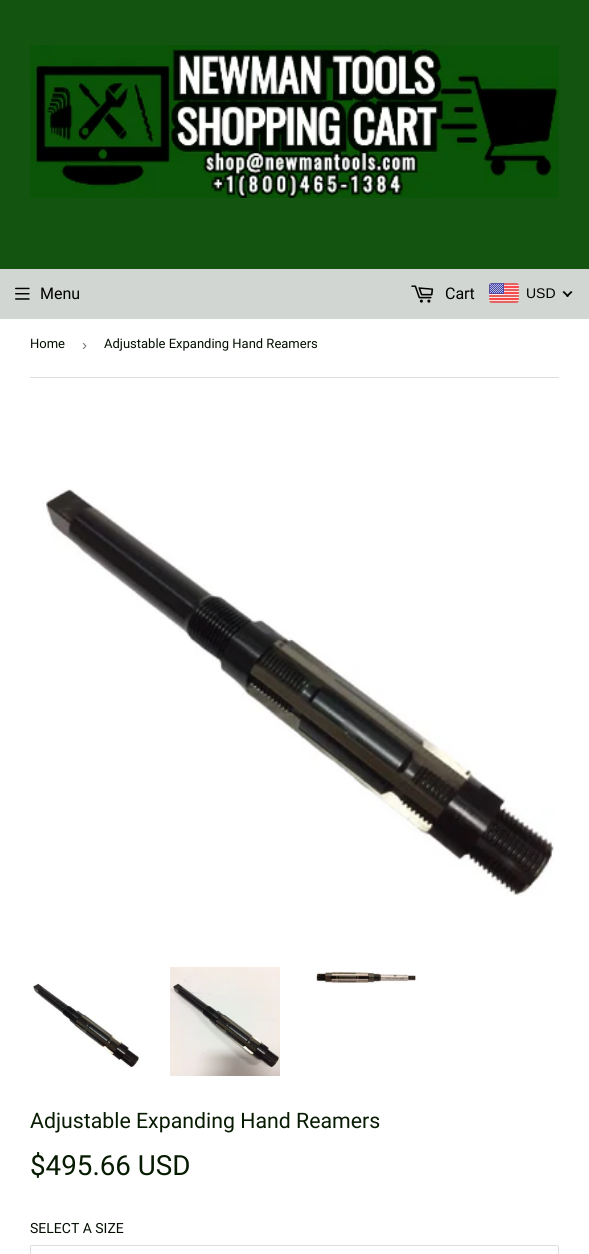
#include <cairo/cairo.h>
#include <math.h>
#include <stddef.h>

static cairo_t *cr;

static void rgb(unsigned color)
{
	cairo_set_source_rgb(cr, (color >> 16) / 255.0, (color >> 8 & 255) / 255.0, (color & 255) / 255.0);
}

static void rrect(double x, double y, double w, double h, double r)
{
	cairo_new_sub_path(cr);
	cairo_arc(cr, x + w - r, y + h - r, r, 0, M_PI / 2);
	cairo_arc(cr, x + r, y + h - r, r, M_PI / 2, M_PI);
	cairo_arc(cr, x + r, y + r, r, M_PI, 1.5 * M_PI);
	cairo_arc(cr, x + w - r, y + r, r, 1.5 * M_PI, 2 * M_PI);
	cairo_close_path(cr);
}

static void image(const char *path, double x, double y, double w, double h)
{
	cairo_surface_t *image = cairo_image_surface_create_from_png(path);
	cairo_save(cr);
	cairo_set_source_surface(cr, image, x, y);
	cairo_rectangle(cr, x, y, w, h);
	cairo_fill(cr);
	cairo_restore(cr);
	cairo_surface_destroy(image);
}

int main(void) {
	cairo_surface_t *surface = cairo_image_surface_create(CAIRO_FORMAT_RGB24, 589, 1254);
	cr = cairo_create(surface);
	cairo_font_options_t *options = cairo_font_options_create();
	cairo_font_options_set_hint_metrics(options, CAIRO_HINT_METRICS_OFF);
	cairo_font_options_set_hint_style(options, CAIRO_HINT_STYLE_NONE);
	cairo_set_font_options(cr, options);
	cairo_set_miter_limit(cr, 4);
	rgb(0xffffff);
	cairo_paint(cr);
	rgb(0x145411);
	cairo_rectangle(cr, 0, 0, 589, 269);
	cairo_fill(cr);
	image("img/1.png", 30, 45, 529, 153);
	rgb(0xd2d6d2);
	cairo_rectangle(cr, 0, 269, 589, 50);
	cairo_fill(cr);
	image("img/2.png", 15, 287, 15, 13);
	image("img/3.png", 411, 285, 23, 18);
	image("img/4.png", 489, 283, 30, 20);
	rgb(0x000000);
	cairo_new_path(cr);
	cairo_move_to(cr, 571, 291);
	cairo_line_to(cr, 572.5, 292);
	cairo_line_to(cr, 567.5, 297);
	cairo_line_to(cr, 566, 296);
	cairo_close_path(cr);
	cairo_fill(cr);
	cairo_new_path(cr);
	cairo_move_to(cr, 564, 291);
	cairo_line_to(cr, 569, 296);
	cairo_line_to(cr, 567.5, 297);
	cairo_line_to(cr, 562.5, 292);
	cairo_close_path(cr);
	cairo_fill(cr);
	rgb(0xdedede);
	cairo_rectangle(cr, 30, 377, 529, 1);
	cairo_fill(cr);
	image("img/5.png", 42, 488, 512, 409);
	image("img/6.png", 170, 967, 110, 109);
	image("img/7.png", 315, 971, 104, 13);
	image("img/8.png", 33, 983, 107, 85);
	rrect(30.5, 1245.5, 528, 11, 1.5);
	cairo_set_line_width(cr, 1);
	cairo_stroke(cr);
	cairo_select_font_face(cr, "Roboto", CAIRO_FONT_SLANT_NORMAL, CAIRO_FONT_WEIGHT_NORMAL);
	cairo_set_font_size(cr, 16);
	rgb(0x000000);
	cairo_move_to(cr, 40, 299);
	cairo_show_text(cr, "Menu");
	cairo_move_to(cr, 445, 299);
	cairo_show_text(cr, "Cart");
	cairo_select_font_face(cr, "Liberation Sans", CAIRO_FONT_SLANT_NORMAL, CAIRO_FONT_WEIGHT_NORMAL);
	cairo_set_font_size(cr, 14);
	cairo_move_to(cr, 526, 298);
	cairo_show_text(cr, "USD");
	cairo_select_font_face(cr, "Roboto", CAIRO_FONT_SLANT_NORMAL, CAIRO_FONT_WEIGHT_NORMAL);
	cairo_set_font_size(cr, 13);
	rgb(0x030e01);
	cairo_move_to(cr, 30, 348);
	cairo_show_text(cr, "Home");
	cairo_select_font_face(cr, "Liberation Sans", CAIRO_FONT_SLANT_NORMAL, CAIRO_FONT_WEIGHT_NORMAL);
	cairo_set_font_size(cr, 15);
	rgb(0x767676);
	cairo_move_to(cr, 82, 350);
	cairo_show_text(cr, "›");
	cairo_select_font_face(cr, "Roboto", CAIRO_FONT_SLANT_NORMAL, CAIRO_FONT_WEIGHT_NORMAL);
	cairo_set_font_size(cr, 13);
	rgb(0x030e01);
	cairo_move_to(cr, 104, 348);
	cairo_show_text(cr, "Adjustable Expanding Hand Reamers");
	cairo_set_font_size(cr, 21.3);
	rgb(0x071b02);
	cairo_move_to(cr, 30, 1128);
	cairo_show_text(cr, "Adjustable Expanding Hand Reamers");
	cairo_set_font_size(cr, 27.75);
	cairo_move_to(cr, 30, 1175);
	cairo_show_text(cr, "$495.66 USD");
	cairo_set_font_size(cr, 14);
	rgb(0x030e01);
	cairo_move_to(cr, 30, 1233);
	cairo_show_text(cr, "SELECT A SIZE");
	cairo_surface_write_to_png(surface, "page.png");
	cairo_font_options_destroy(options);
	cairo_destroy(cr);
	cairo_surface_destroy(surface);
	return 0;
}
